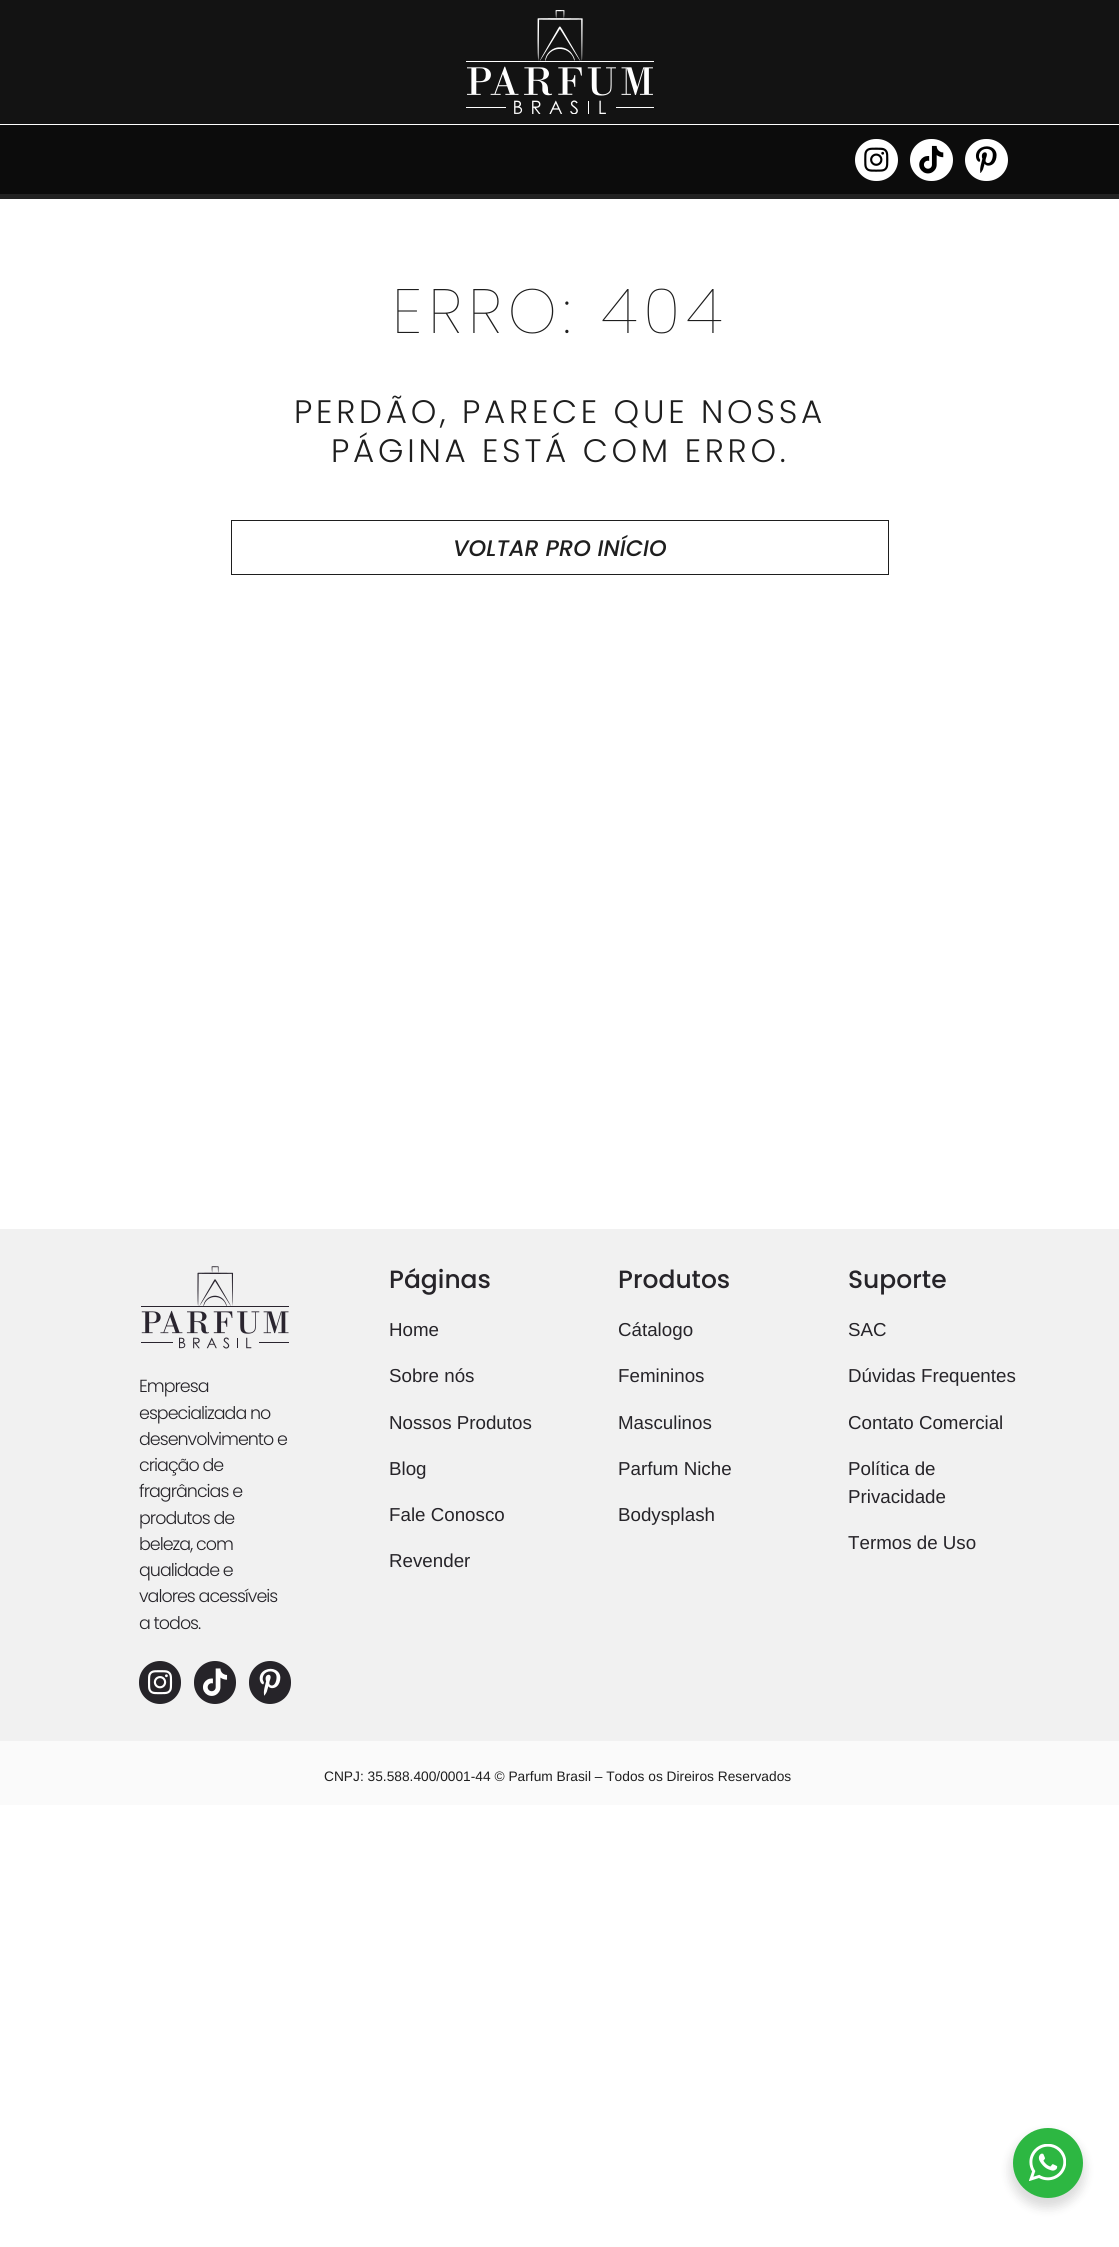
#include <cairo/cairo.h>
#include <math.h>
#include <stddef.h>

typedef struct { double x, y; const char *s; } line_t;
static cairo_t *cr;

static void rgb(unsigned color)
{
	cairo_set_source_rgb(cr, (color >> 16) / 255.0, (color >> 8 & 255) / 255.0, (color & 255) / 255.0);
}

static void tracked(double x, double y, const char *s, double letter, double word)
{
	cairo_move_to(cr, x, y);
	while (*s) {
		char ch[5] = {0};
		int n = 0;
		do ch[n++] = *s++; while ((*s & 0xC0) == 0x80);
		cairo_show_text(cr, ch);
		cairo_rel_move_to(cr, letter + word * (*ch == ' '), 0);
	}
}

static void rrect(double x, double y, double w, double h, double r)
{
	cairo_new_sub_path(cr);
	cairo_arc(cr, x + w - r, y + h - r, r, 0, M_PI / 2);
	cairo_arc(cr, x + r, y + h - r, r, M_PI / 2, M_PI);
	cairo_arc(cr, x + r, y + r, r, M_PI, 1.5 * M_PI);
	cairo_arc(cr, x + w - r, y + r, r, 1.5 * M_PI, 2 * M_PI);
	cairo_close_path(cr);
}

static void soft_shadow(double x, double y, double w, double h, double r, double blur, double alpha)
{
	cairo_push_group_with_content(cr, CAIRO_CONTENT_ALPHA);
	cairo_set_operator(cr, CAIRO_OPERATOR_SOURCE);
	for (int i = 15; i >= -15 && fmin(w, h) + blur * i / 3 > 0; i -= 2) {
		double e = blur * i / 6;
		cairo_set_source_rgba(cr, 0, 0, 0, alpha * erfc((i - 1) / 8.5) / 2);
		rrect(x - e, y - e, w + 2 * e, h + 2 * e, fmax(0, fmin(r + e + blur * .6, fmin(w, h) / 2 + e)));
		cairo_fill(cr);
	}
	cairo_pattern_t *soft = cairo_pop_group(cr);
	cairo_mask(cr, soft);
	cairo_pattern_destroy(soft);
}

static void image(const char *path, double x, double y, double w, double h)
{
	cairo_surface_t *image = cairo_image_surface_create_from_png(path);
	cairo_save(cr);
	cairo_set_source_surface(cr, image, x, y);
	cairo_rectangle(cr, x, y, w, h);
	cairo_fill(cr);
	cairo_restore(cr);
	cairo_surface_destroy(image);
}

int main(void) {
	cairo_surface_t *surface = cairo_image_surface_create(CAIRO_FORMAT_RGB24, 1119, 2247);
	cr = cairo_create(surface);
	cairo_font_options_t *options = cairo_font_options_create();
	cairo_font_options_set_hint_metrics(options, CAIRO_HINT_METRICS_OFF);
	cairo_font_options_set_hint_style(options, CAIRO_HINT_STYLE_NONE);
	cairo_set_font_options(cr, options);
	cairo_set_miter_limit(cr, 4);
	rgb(0xffffff);
	cairo_paint(cr);
	rgb(0x131313);
	cairo_rectangle(cr, 0, 0, 1119, 124);
	cairo_fill(cr);
	image("img/1.png", 466, 10, 188, 104);
	rgb(0x0c0c0c);
	cairo_rectangle(cr, 0, 125, 1119, 69);
	cairo_fill(cr);
	rgb(0xffffff);
	rrect(855, 139, 43, 42, 21);
	cairo_fill(cr);
	image("img/2.png", 864, 147, 25, 25);
	rrect(910, 139, 43, 42, 21);
	cairo_fill(cr);
	image("img/3.png", 919, 145, 25, 29);
	rrect(965, 139, 43, 42, 21);
	cairo_fill(cr);
	image("img/4.png", 975, 146, 22, 27);
	rgb(0x232323);
	cairo_rectangle(cr, 0, 194, 1119, 5);
	cairo_fill(cr);
	cairo_rectangle(cr, 231.5, 520.5, 657, 54);
	rgb(0x1e1e1e);
	cairo_set_line_width(cr, 1);
	cairo_stroke(cr);
	rgb(0xf1f1f1);
	cairo_rectangle(cr, 0, 1229, 1119, 512);
	cairo_fill(cr);
	image("img/5.png", 141, 1266, 148, 83);
	rgb(0x262429);
	rrect(139, 1661, 42, 43, 21);
	cairo_fill(cr);
	image("img/6.png", 147, 1670, 26, 25);
	rrect(194, 1661, 42, 43, 21);
	cairo_fill(cr);
	image("img/7.png", 203, 1668, 25, 28);
	rrect(249, 1661, 42, 43, 21);
	cairo_fill(cr);
	image("img/8.png", 259, 1668, 22, 28);
	rgb(0xfafafa);
	cairo_rectangle(cr, 0, 1741, 1119, 64);
	cairo_fill(cr);
	rgb(0x000000);
	soft_shadow(1010, 2133, 75, 75, 37.5, 5, 0.14);
	rgb(0x2db742);
	cairo_arc(cr, 1048, 2163, 35, 0, 2 * M_PI);
	cairo_fill(cr);
	image("img/9.png", 1029, 2144, 37, 37);
	cairo_select_font_face(cr, "Poppins ExtraLight", CAIRO_FONT_SLANT_NORMAL, CAIRO_FONT_WEIGHT_NORMAL);
	cairo_set_font_size(cr, 62.5);
	rgb(0x1e1e1e);
	tracked(392, 333, "ERRO: 404", 6.25, 0);
	cairo_select_font_face(cr, "Poppins Light", CAIRO_FONT_SLANT_NORMAL, CAIRO_FONT_WEIGHT_NORMAL);
	cairo_set_font_size(cr, 32.5);
	tracked(294, 423, "PERDÃO, PARECE QUE NOSSA", 3.75, 0);
	tracked(331, 462, "PÁGINA ESTÁ COM ERRO.", 3.75, 0);
	cairo_select_font_face(cr, "Poppins Medium", CAIRO_FONT_SLANT_ITALIC, CAIRO_FONT_WEIGHT_NORMAL);
	cairo_set_font_size(cr, 22.5);
	cairo_move_to(cr, 453, 556);
	cairo_show_text(cr, "VOLTAR PRO INÍCIO");
	cairo_select_font_face(cr, "Poppins Light", CAIRO_FONT_SLANT_NORMAL, CAIRO_FONT_WEIGHT_NORMAL);
	cairo_set_font_size(cr, 17.5);
	rgb(0x262429);
	{
		static const line_t items[] = {
			{139, 1392, "Empresa"},
			{139, 1419, "especializada no"},
			{139, 1445, "desenvolvimento e"},
			{139, 1471, "criação de"},
			{139, 1497, "fragrâncias e"},
			{139, 1524, "produtos de"},
			{139, 1550, "beleza, com"},
			{139, 1576, "qualidade e"},
			{139, 1602, "valores acessíveis"},
			{139, 1629, "a todos."},
		};
		for (size_t i = 0; i < sizeof items / sizeof *items; i++) {
			tracked(items[i].x, items[i].y, items[i].s, -1, 0);
		}
	}
	cairo_select_font_face(cr, "Poppins Medium", CAIRO_FONT_SLANT_NORMAL, CAIRO_FONT_WEIGHT_NORMAL);
	cairo_set_font_size(cr, 25);
	cairo_move_to(cr, 389, 1288);
	cairo_show_text(cr, "Páginas");
	cairo_select_font_face(cr, "Liberation Sans", CAIRO_FONT_SLANT_NORMAL, CAIRO_FONT_WEIGHT_NORMAL);
	cairo_set_font_size(cr, 18.75);
	{
		static const line_t items[] = {
			{389, 1336, "Home"},
			{389, 1382, "Sobre nós"},
			{389, 1429, "Nossos Produtos"},
			{389, 1475, "Blog"},
			{389, 1521, "Fale Conosco"},
			{389, 1567, "Revender"},
		};
		for (size_t i = 0; i < sizeof items / sizeof *items; i++) {
			cairo_move_to(cr, items[i].x, items[i].y);
			cairo_show_text(cr, items[i].s);
		}
	}
	cairo_select_font_face(cr, "Poppins Medium", CAIRO_FONT_SLANT_NORMAL, CAIRO_FONT_WEIGHT_NORMAL);
	cairo_set_font_size(cr, 25);
	cairo_move_to(cr, 618, 1288);
	cairo_show_text(cr, "Produtos");
	cairo_select_font_face(cr, "Liberation Sans", CAIRO_FONT_SLANT_NORMAL, CAIRO_FONT_WEIGHT_NORMAL);
	cairo_set_font_size(cr, 18.75);
	{
		static const line_t items[] = {
			{618, 1336, "Cátalogo"},
			{618, 1382, "Femininos"},
			{618, 1429, "Masculinos"},
			{618, 1475, "Parfum Niche"},
			{618, 1521, "Bodysplash"},
		};
		for (size_t i = 0; i < sizeof items / sizeof *items; i++) {
			cairo_move_to(cr, items[i].x, items[i].y);
			cairo_show_text(cr, items[i].s);
		}
	}
	cairo_select_font_face(cr, "Poppins Medium", CAIRO_FONT_SLANT_NORMAL, CAIRO_FONT_WEIGHT_NORMAL);
	cairo_set_font_size(cr, 25);
	cairo_move_to(cr, 848, 1288);
	cairo_show_text(cr, "Suporte");
	cairo_select_font_face(cr, "Liberation Sans", CAIRO_FONT_SLANT_NORMAL, CAIRO_FONT_WEIGHT_NORMAL);
	cairo_set_font_size(cr, 18.75);
	{
		static const line_t items[] = {
			{848, 1336, "SAC"},
			{848, 1382, "Dúvidas Frequentes"},
			{848, 1429, "Contato Comercial"},
			{848, 1475, "Política de"},
			{848, 1503, "Privacidade"},
			{848, 1549, "Termos de Uso"},
		};
		for (size_t i = 0; i < sizeof items / sizeof *items; i++) {
			cairo_move_to(cr, items[i].x, items[i].y);
			cairo_show_text(cr, items[i].s);
		}
	}
	cairo_set_font_size(cr, 13.75);
	rgb(0x1e1e1e);
	cairo_move_to(cr, 324, 1781);
	cairo_show_text(cr, "CNPJ: 35.588.400/0001-44 © Parfum Brasil – Todos os Direiros Reservados");
	cairo_surface_write_to_png(surface, "page.png");
	cairo_font_options_destroy(options);
	cairo_destroy(cr);
	cairo_surface_destroy(surface);
	return 0;
}
